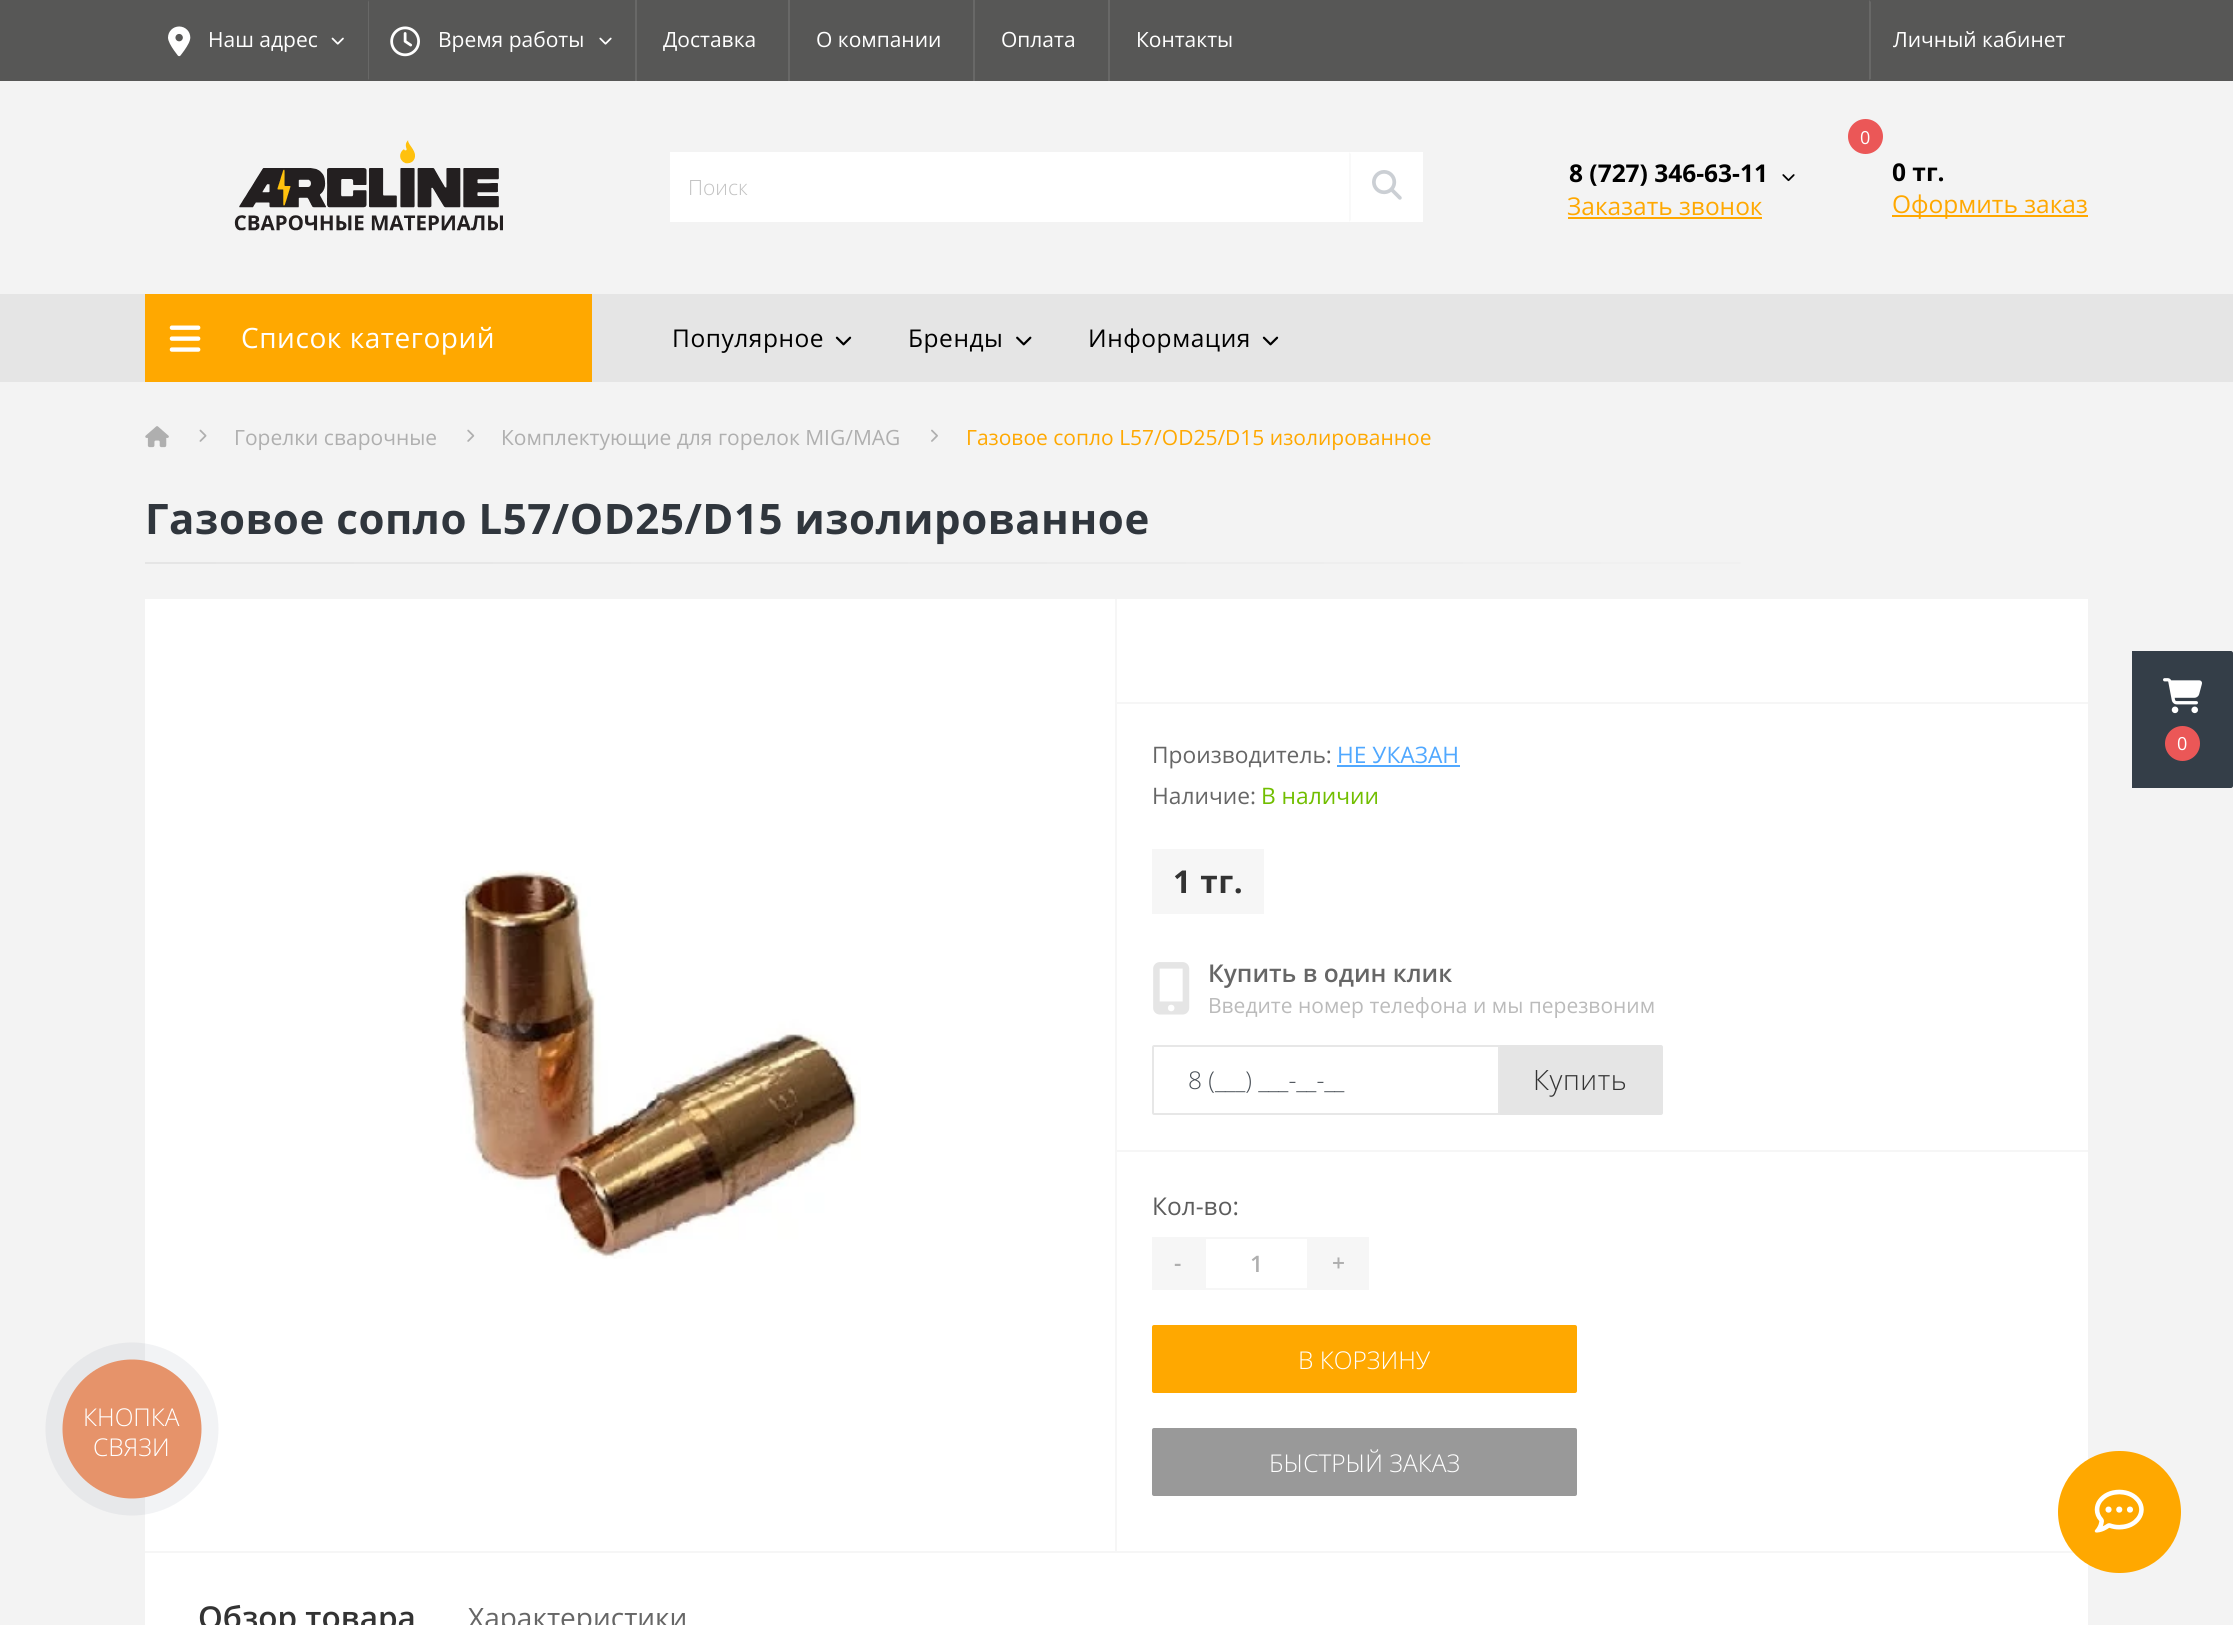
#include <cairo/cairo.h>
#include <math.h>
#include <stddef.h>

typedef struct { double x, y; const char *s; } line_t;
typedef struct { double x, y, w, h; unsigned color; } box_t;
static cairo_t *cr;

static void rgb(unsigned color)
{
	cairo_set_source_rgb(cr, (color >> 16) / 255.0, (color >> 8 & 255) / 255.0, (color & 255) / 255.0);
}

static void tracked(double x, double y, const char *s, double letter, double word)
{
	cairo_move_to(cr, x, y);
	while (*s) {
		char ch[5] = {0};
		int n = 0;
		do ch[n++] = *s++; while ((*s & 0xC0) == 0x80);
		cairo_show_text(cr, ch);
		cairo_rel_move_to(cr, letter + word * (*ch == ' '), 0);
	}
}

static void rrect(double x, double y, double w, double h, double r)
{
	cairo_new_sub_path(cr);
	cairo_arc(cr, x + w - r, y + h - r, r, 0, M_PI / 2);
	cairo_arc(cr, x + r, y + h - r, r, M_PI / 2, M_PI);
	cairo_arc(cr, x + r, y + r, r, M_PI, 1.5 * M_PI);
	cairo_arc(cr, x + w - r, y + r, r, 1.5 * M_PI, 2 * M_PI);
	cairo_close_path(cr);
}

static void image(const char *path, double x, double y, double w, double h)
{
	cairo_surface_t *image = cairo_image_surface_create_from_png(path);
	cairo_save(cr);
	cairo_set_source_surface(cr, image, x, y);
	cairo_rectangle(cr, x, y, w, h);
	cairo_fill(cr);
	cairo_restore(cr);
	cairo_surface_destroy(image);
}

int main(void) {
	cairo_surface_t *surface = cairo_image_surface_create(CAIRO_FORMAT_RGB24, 2233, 1625);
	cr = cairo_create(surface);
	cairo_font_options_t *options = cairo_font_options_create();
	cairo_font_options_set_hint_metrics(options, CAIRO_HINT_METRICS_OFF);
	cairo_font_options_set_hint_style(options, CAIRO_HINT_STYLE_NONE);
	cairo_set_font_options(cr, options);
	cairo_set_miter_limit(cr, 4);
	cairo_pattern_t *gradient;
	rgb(0xf3f3f3);
	cairo_paint(cr);
	rgb(0x575756);
	cairo_rectangle(cr, 0, 0, 2233, 81);
	cairo_fill(cr);
	image("img/1.png", 168, 26, 23, 31);
	image("img/2.png", 331, 37, 13, 8);
	rgb(0x686867);
	cairo_new_path(cr);
	cairo_move_to(cr, 368, 80);
	cairo_line_to(cr, 368, 0);
	cairo_line_to(cr, 369, 2);
	cairo_line_to(cr, 369, 79);
	cairo_close_path(cr);
	cairo_fill(cr);
	image("img/3.png", 390, 26, 30, 31);
	image("img/4.png", 599, 37, 13, 8);
	{
		static const box_t items[] = {
			{635, 0, 2, 81, 0x686867},
			{788, 0, 2, 81, 0x686867},
			{973, 0, 2, 81, 0x686867},
			{1108, 0, 2, 81, 0x686867},
		};
		for (size_t i = 0; i < sizeof items / sizeof *items; i++) {
			rgb(items[i].color);
			cairo_rectangle(cr, items[i].x, items[i].y, items[i].w, items[i].h);
			cairo_fill(cr);
		}
	}
	cairo_new_path(cr);
	cairo_move_to(cr, 1869, 80);
	cairo_line_to(cr, 1869, 0);
	cairo_line_to(cr, 1871, 2);
	cairo_line_to(cr, 1871, 79);
	cairo_close_path(cr);
	cairo_fill(cr);
	image("img/5.png", 234, 140, 269, 91);
	rgb(0xffffff);
	cairo_rectangle(cr, 670, 152, 753, 70);
	cairo_fill(cr);
	rgb(0xf9f9f9);
	cairo_new_path(cr);
	cairo_move_to(cr, 1349, 222);
	cairo_line_to(cr, 1349, 152);
	cairo_line_to(cr, 1351, 154);
	cairo_line_to(cr, 1351, 220);
	cairo_close_path(cr);
	cairo_fill(cr);
	image("img/6.png", 1372, 170, 30, 30);
	image("img/7.png", 1782, 174, 13, 8);
	rgb(0xffa800);
	cairo_rectangle(cr, 1568, 217, 194, 2);
	cairo_fill(cr);
	rgb(0xeb5757);
	cairo_arc(cr, 1865.5, 136.5, 17.5, 0, 2 * M_PI);
	cairo_fill(cr);
	{
		static const box_t items[] = {
			{1892, 215, 196, 2, 0xffa800},
			{0, 294, 2233, 88, 0xe5e5e5},
			{145, 294, 447, 88, 0xffa800},
		};
		for (size_t i = 0; i < sizeof items / sizeof *items; i++) {
			rgb(items[i].color);
			cairo_rectangle(cr, items[i].x, items[i].y, items[i].w, items[i].h);
			cairo_fill(cr);
		}
	}
	image("img/8.png", 169, 325, 32, 27);
	image("img/9.png", 835, 336, 17, 10);
	image("img/10.png", 1016, 336, 16, 10);
	image("img/9.png", 1262, 336, 17, 10);
	image("img/11.png", 145, 426, 24, 22);
	image("img/12.png", 199, 429, 8, 13);
	image("img/13.png", 467, 429, 8, 13);
	image("img/14.png", 931, 429, 7, 13);
	gradient = cairo_pattern_create_linear(145, 563, 2088, 562);
	cairo_pattern_add_color_stop_rgba(gradient, 0, 0.898, 0.898, 0.898, 1);
	cairo_pattern_add_color_stop_rgba(gradient, 1, 0.953, 0.953, 0.953, 1);
	cairo_set_source(cr, gradient);
	cairo_pattern_destroy(gradient);
	cairo_rectangle(cr, 145, 562, 1596, 2);
	cairo_fill(cr);
	{
		static const box_t items[] = {
			{145, 599, 1943, 1026, 0xffffff},
			{145, 1551, 1929, 2, 0xf6f6f6},
			{1115, 599, 2, 952, 0xf6f6f6},
		};
		for (size_t i = 0; i < sizeof items / sizeof *items; i++) {
			rgb(items[i].color);
			cairo_rectangle(cr, items[i].x, items[i].y, items[i].w, items[i].h);
			cairo_fill(cr);
		}
	}
	image("img/15.png", 460, 870, 401, 389);
	{
		static const box_t items[] = {
			{1117, 702, 971, 2, 0xf6f6f6},
			{1117, 1150, 971, 2, 0xf6f6f6},
			{1337, 765, 123, 2, 0x50a8ff},
			{1152, 849, 112, 65, 0xf6f6f6},
		};
		for (size_t i = 0; i < sizeof items / sizeof *items; i++) {
			rgb(items[i].color);
			cairo_rectangle(cr, items[i].x, items[i].y, items[i].w, items[i].h);
			cairo_fill(cr);
		}
	}
	image("img/16.png", 1153, 962, 37, 53);
	rgb(0xe5e5e5);
	cairo_new_path(cr);
	cairo_move_to(cr, 1498, 1045);
	cairo_line_to(cr, 1661, 1045);
	cairo_curve_to(cr, 1662, 1045, 1663, 1046, 1663, 1047);
	cairo_line_to(cr, 1663, 1113);
	cairo_curve_to(cr, 1663, 1114, 1662, 1115, 1661, 1115);
	cairo_line_to(cr, 1498, 1115);
	cairo_close_path(cr);
	cairo_fill(cr);
	cairo_new_path(cr);
	cairo_move_to(cr, 1154, 1046);
	cairo_line_to(cr, 1499, 1046);
	cairo_line_to(cr, 1499, 1114);
	cairo_line_to(cr, 1154, 1114);
	cairo_curve_to(cr, 1153.5, 1114, 1153, 1113.5, 1153, 1113);
	cairo_line_to(cr, 1153, 1047);
	cairo_curve_to(cr, 1153, 1046.5, 1153.5, 1046, 1154, 1046);
	cairo_close_path(cr);
	rgb(0xe7e7e7);
	cairo_stroke(cr);
	rgb(0xf6f6f6);
	cairo_rectangle(cr, 1152, 1237, 52, 53);
	cairo_fill(cr);
	cairo_rectangle(cr, 1205, 1238, 103, 51);
	cairo_stroke(cr);
	cairo_rectangle(cr, 1309, 1237, 60, 53);
	cairo_fill(cr);
	rgb(0xffa800);
	rrect(1152, 1325, 425, 68, 2);
	cairo_fill(cr);
	rgb(0x999999);
	rrect(1152, 1428, 425, 68, 2);
	cairo_fill(cr);
	rgb(0x343e48);
	cairo_new_path(cr);
	cairo_move_to(cr, 2132, 651);
	cairo_line_to(cr, 2231, 651);
	cairo_curve_to(cr, 2232, 651, 2233, 652, 2233, 653);
	cairo_line_to(cr, 2233, 786);
	cairo_curve_to(cr, 2233, 787, 2232, 788, 2231, 788);
	cairo_line_to(cr, 2132, 788);
	cairo_close_path(cr);
	cairo_fill(cr);
	image("img/17.png", 2163, 678, 39, 36);
	rgb(0xeb5757);
	cairo_arc(cr, 2182.5, 743.5, 17.5, 0, 2 * M_PI);
	cairo_fill(cr);
	cairo_set_source_rgba(cr, 0.165, 0.251, 0.365, 0.06);
	cairo_arc(cr, 132, 1429, 86.5, 0, 2 * M_PI);
	cairo_fill(cr);
	rgb(0xe6936a);
	cairo_arc(cr, 132, 1429, 69.5, 0, 2 * M_PI);
	cairo_fill(cr);
	rgb(0xffa800);
	rrect(2058, 1451, 123, 122, 61);
	cairo_fill(cr);
	image("img/18.png", 2094, 1489, 50, 44);
	cairo_select_font_face(cr, "Open Sans", CAIRO_FONT_SLANT_NORMAL, CAIRO_FONT_WEIGHT_NORMAL);
	cairo_set_font_size(cr, 21);
	rgb(0xffffff);
	{
		static const line_t items[] = {
			{208, 47, "Наш адрес"},
			{438, 47, "Время работы"},
			{663, 47, "Доставка"},
			{816, 47, "О компании"},
			{1001, 47, "Оплата"},
			{1136, 47, "Контакты"},
			{1893, 47, "Личный кабинет"},
		};
		for (size_t i = 0; i < sizeof items / sizeof *items; i++) {
			cairo_move_to(cr, items[i].x, items[i].y);
			cairo_show_text(cr, items[i].s);
		}
	}
	cairo_select_font_face(cr, "Open Sans Light", CAIRO_FONT_SLANT_NORMAL, CAIRO_FONT_WEIGHT_NORMAL);
	rgb(0xc2c2c2);
	cairo_move_to(cr, 688, 195);
	cairo_show_text(cr, "Поиск");
	cairo_select_font_face(cr, "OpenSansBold", CAIRO_FONT_SLANT_NORMAL, CAIRO_FONT_WEIGHT_BOLD);
	cairo_set_font_size(cr, 24.5);
	rgb(0x000000);
	cairo_move_to(cr, 1569, 182);
	cairo_show_text(cr, "8 (727) 346-63-11");
	cairo_select_font_face(cr, "Open Sans", CAIRO_FONT_SLANT_NORMAL, CAIRO_FONT_WEIGHT_NORMAL);
	rgb(0xffa800);
	cairo_move_to(cr, 1567, 215);
	cairo_show_text(cr, "Заказать звонок");
	cairo_set_font_size(cr, 18);
	rgb(0xffffff);
	cairo_move_to(cr, 1860, 144);
	cairo_show_text(cr, "0");
	cairo_select_font_face(cr, "OpenSansBold", CAIRO_FONT_SLANT_NORMAL, CAIRO_FONT_WEIGHT_BOLD);
	cairo_set_font_size(cr, 24.5);
	rgb(0x000000);
	cairo_move_to(cr, 1892, 181);
	cairo_show_text(cr, "0 тг.");
	cairo_select_font_face(cr, "Open Sans", CAIRO_FONT_SLANT_NORMAL, CAIRO_FONT_WEIGHT_NORMAL);
	rgb(0xffa800);
	cairo_move_to(cr, 1892, 213);
	cairo_show_text(cr, "Оформить заказ");
	cairo_set_font_size(cr, 28);
	rgb(0xffffff);
	tracked(241, 348, "Список категорий", 0.55, 0);
	cairo_set_font_size(cr, 24.5);
	rgb(0x000000);
	{
		static const line_t items[] = {
			{672, 347, "Популярное"},
			{908, 347, "Бренды"},
			{1088, 347, "Информация"},
		};
		for (size_t i = 0; i < sizeof items / sizeof *items; i++) {
			tracked(items[i].x, items[i].y, items[i].s, 0.55, 0);
		}
	}
	cairo_set_font_size(cr, 21);
	rgb(0xafafaf);
	cairo_move_to(cr, 234, 445);
	cairo_show_text(cr, "Горелки сварочные");
	cairo_move_to(cr, 501, 445);
	cairo_show_text(cr, "Комплектующие для горелок MIG/MAG");
	rgb(0xffa800);
	cairo_move_to(cr, 966, 445);
	cairo_show_text(cr, "Газовое сопло L57/OD25/D15 изолированное");
	cairo_select_font_face(cr, "OpenSansBold", CAIRO_FONT_SLANT_NORMAL, CAIRO_FONT_WEIGHT_BOLD);
	cairo_set_font_size(cr, 42);
	rgb(0x30363d);
	tracked(145, 534, "Газовое сопло L57/OD25/D15 изолированное", 0.55, 0);
	cairo_select_font_face(cr, "Open Sans", CAIRO_FONT_SLANT_NORMAL, CAIRO_FONT_WEIGHT_NORMAL);
	cairo_set_font_size(cr, 22.75);
	rgb(0x666666);
	cairo_move_to(cr, 1152, 763);
	cairo_show_text(cr, "Производитель:");
	rgb(0x50a8ff);
	cairo_move_to(cr, 1337, 763);
	cairo_show_text(cr, "НЕ УКАЗАН");
	rgb(0x666666);
	cairo_move_to(cr, 1152, 804);
	cairo_show_text(cr, "Наличие:");
	rgb(0x71be00);
	cairo_move_to(cr, 1261, 804);
	cairo_show_text(cr, "В наличии");
	cairo_select_font_face(cr, "OpenSansBold", CAIRO_FONT_SLANT_NORMAL, CAIRO_FONT_WEIGHT_BOLD);
	cairo_set_font_size(cr, 31.5);
	rgb(0x333333);
	tracked(1173, 893, "1 тг.", 0.55, 0);
	cairo_select_font_face(cr, "Open Sans SemiBold", CAIRO_FONT_SLANT_NORMAL, CAIRO_FONT_WEIGHT_NORMAL);
	cairo_set_font_size(cr, 24.5);
	rgb(0x666666);
	cairo_move_to(cr, 1208, 982);
	cairo_show_text(cr, "Купить в один клик");
	cairo_select_font_face(cr, "Open Sans", CAIRO_FONT_SLANT_NORMAL, CAIRO_FONT_WEIGHT_NORMAL);
	cairo_set_font_size(cr, 21);
	rgb(0xbbbbbb);
	cairo_move_to(cr, 1208, 1013);
	cairo_show_text(cr, "Введите номер телефона и мы перезвоним");
	cairo_select_font_face(cr, "Open Sans Light", CAIRO_FONT_SLANT_NORMAL, CAIRO_FONT_WEIGHT_NORMAL);
	cairo_set_font_size(cr, 24.5);
	rgb(0x495057);
	cairo_move_to(cr, 1188, 1089);
	cairo_show_text(cr, "8 (___) ___-__-__");
	cairo_set_font_size(cr, 28);
	rgb(0x333333);
	tracked(1533, 1090, "Купить", 0.55, 0);
	cairo_select_font_face(cr, "Open Sans", CAIRO_FONT_SLANT_NORMAL, CAIRO_FONT_WEIGHT_NORMAL);
	cairo_set_font_size(cr, 24.5);
	rgb(0x5c5c5c);
	cairo_move_to(cr, 1152, 1215);
	cairo_show_text(cr, "Кол-во:");
	cairo_select_font_face(cr, "Open Sans SemiBold", CAIRO_FONT_SLANT_NORMAL, CAIRO_FONT_WEIGHT_NORMAL);
	cairo_set_font_size(cr, 22.75);
	rgb(0xafafaf);
	{
		static const line_t items[] = {
			{1174, 1271, "-"},
			{1250, 1272, "1"},
			{1332, 1271, "+"},
		};
		for (size_t i = 0; i < sizeof items / sizeof *items; i++) {
			cairo_move_to(cr, items[i].x, items[i].y);
			cairo_show_text(cr, items[i].s);
		}
	}
	cairo_select_font_face(cr, "Open Sans Light", CAIRO_FONT_SLANT_NORMAL, CAIRO_FONT_WEIGHT_NORMAL);
	cairo_set_font_size(cr, 24.5);
	rgb(0xffffff);
	cairo_move_to(cr, 1298, 1369);
	cairo_show_text(cr, "В КОРЗИНУ");
	cairo_move_to(cr, 1269, 1472);
	cairo_show_text(cr, "БЫСТРЫЙ ЗАКАЗ");
	cairo_select_font_face(cr, "Open Sans SemiBold", CAIRO_FONT_SLANT_NORMAL, CAIRO_FONT_WEIGHT_NORMAL);
	cairo_set_font_size(cr, 31.5);
	rgb(0x333333);
	cairo_move_to(cr, 198, 1629);
	cairo_show_text(cr, "Обзор товара");
	cairo_select_font_face(cr, "Open Sans", CAIRO_FONT_SLANT_NORMAL, CAIRO_FONT_WEIGHT_NORMAL);
	cairo_set_font_size(cr, 28);
	rgb(0x666666);
	cairo_move_to(cr, 468, 1628);
	cairo_show_text(cr, "Характеристики");
	cairo_set_font_size(cr, 18);
	rgb(0xffffff);
	cairo_move_to(cr, 2177, 750);
	cairo_show_text(cr, "0");
	cairo_select_font_face(cr, "Open Sans Light", CAIRO_FONT_SLANT_NORMAL, CAIRO_FONT_WEIGHT_NORMAL);
	cairo_set_font_size(cr, 24.5);
	cairo_move_to(cr, 83, 1426);
	cairo_show_text(cr, "КНОПКА");
	cairo_move_to(cr, 93, 1456);
	cairo_show_text(cr, "СВЯЗИ");
	cairo_surface_write_to_png(surface, "page.png");
	cairo_font_options_destroy(options);
	cairo_destroy(cr);
	cairo_surface_destroy(surface);
	return 0;
}
